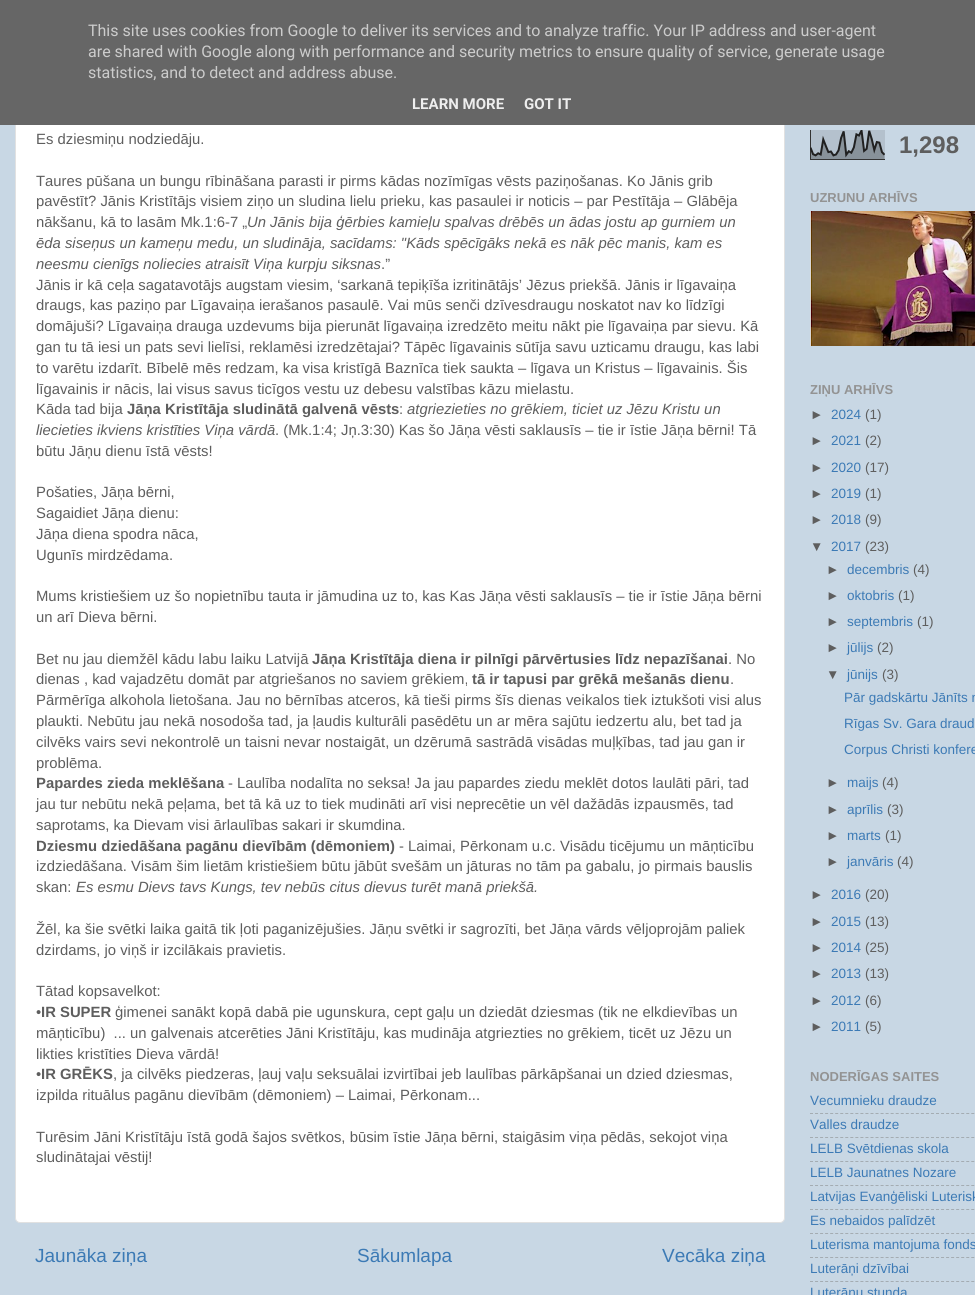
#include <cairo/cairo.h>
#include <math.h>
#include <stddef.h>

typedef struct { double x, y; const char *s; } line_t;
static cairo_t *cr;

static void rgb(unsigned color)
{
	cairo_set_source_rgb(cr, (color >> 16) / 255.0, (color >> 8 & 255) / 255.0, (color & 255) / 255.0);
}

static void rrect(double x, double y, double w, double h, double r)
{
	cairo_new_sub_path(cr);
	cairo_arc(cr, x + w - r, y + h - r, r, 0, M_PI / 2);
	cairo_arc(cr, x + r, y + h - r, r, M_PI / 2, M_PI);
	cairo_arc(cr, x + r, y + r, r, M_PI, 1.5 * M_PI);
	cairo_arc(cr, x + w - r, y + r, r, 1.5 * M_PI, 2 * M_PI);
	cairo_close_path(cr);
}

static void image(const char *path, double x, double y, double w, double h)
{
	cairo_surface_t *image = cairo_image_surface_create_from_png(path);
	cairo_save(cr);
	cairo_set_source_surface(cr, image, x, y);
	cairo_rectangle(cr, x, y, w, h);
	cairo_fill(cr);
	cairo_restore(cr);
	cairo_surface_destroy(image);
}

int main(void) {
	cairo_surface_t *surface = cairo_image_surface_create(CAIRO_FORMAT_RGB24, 975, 1295);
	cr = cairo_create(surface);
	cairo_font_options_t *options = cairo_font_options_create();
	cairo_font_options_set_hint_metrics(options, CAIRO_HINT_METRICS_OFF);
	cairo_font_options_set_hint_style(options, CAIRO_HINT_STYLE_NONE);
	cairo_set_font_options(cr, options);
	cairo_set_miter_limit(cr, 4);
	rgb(0xc8d7e4);
	cairo_paint(cr);
	rgb(0xffffff);
	rrect(15.5, -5.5, 769, 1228, 4.5);
	cairo_fill_preserve(cr);
	rgb(0xe1e1e1);
	cairo_set_line_width(cr, 1);
	cairo_stroke(cr);
	rgb(0x666666);
	cairo_rectangle(cr, 0, 0, 975, 125);
	cairo_fill(cr);
	image("img/1.png", 810, 130, 75, 30);
	image("img/2.png", 810, 211, 165, 135);
	cairo_new_path(cr);
	cairo_move_to(cr, 810, 1113.5);
	cairo_line_to(cr, 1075, 1113.5);
	rgb(0xa4acb2);
	cairo_set_dash(cr, (double[]){3, 2.04}, 2, 0);
	cairo_stroke(cr);
	cairo_new_path(cr);
	cairo_move_to(cr, 810, 1137.5);
	cairo_line_to(cr, 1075, 1137.5);
	cairo_stroke(cr);
	cairo_new_path(cr);
	cairo_move_to(cr, 810, 1161.5);
	cairo_line_to(cr, 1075, 1161.5);
	cairo_stroke(cr);
	cairo_new_path(cr);
	cairo_move_to(cr, 810, 1185.5);
	cairo_line_to(cr, 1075, 1185.5);
	cairo_stroke(cr);
	cairo_new_path(cr);
	cairo_move_to(cr, 810, 1209.5);
	cairo_line_to(cr, 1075, 1209.5);
	cairo_stroke(cr);
	cairo_new_path(cr);
	cairo_move_to(cr, 810, 1233.5);
	cairo_line_to(cr, 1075, 1233.5);
	cairo_stroke(cr);
	cairo_new_path(cr);
	cairo_move_to(cr, 810, 1257.5);
	cairo_line_to(cr, 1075, 1257.5);
	cairo_stroke(cr);
	cairo_new_path(cr);
	cairo_move_to(cr, 810, 1281.5);
	cairo_line_to(cr, 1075, 1281.5);
	cairo_stroke(cr);
	cairo_select_font_face(cr, "Roboto", CAIRO_FONT_SLANT_NORMAL, CAIRO_FONT_WEIGHT_NORMAL);
	cairo_set_font_size(cr, 16);
	rgb(0xcccccc);
	{
		static const line_t items[] = {
			{88, 36, "This site uses cookies from Google to deliver its services and to analyze traffic. Your IP address and user-agent"},
			{88, 57, "are shared with Google along with performance and security metrics to ensure quality of service, generate usage"},
			{88, 78, "statistics, and to detect and address abuse."},
		};
		for (size_t i = 0; i < sizeof items / sizeof *items; i++) {
			cairo_move_to(cr, items[i].x, items[i].y);
			cairo_show_text(cr, items[i].s);
		}
	}
	cairo_select_font_face(cr, "Roboto", CAIRO_FONT_SLANT_NORMAL, CAIRO_FONT_WEIGHT_BOLD);
	cairo_set_font_size(cr, 15);
	rgb(0xeeeeee);
	cairo_move_to(cr, 412, 109);
	cairo_show_text(cr, "LEARN MORE");
	cairo_move_to(cr, 524, 109);
	cairo_show_text(cr, "GOT IT");
	cairo_select_font_face(cr, "Liberation Sans", CAIRO_FONT_SLANT_NORMAL, CAIRO_FONT_WEIGHT_NORMAL);
	cairo_set_font_size(cr, 14.85);
	rgb(0x5e5e5e);
	{
		static const line_t items[] = {
			{36, 144, "Es dziesmiņu nodziedāju."},
			{36, 186, "Taures pūšana un bungu rībināšana parasti ir pirms kādas nozīmīgas vēsts paziņošanas. Ko Jānis grib"},
			{36, 206, "pavēstīt? Jānis Kristītājs visiem ziņo un sludina lielu prieku, kas pasaulei ir noticis – par Pestītāja – Glābēja"},
			{36, 227, "nākšanu, kā to lasām Mk.1:6-7 „"},
		};
		for (size_t i = 0; i < sizeof items / sizeof *items; i++) {
			cairo_move_to(cr, items[i].x, items[i].y);
			cairo_show_text(cr, items[i].s);
		}
	}
	cairo_select_font_face(cr, "Liberation Sans", CAIRO_FONT_SLANT_ITALIC, CAIRO_FONT_WEIGHT_NORMAL);
	{
		static const line_t items[] = {
			{247, 227, "Un Jānis bija ģērbies kamieļu spalvas drēbēs un ādas jostu ap gurniem un"},
			{36, 248, "ēda siseņus un kameņu medu, un sludināja, sacīdams: \"Kāds spēcīgāks nekā es nāk pēc manis, kam es"},
			{36, 269, "neesmu cienīgs noliecies atraisīt Viņa kurpju siksnas"},
		};
		for (size_t i = 0; i < sizeof items / sizeof *items; i++) {
			cairo_move_to(cr, items[i].x, items[i].y);
			cairo_show_text(cr, items[i].s);
		}
	}
	cairo_select_font_face(cr, "Liberation Sans", CAIRO_FONT_SLANT_NORMAL, CAIRO_FONT_WEIGHT_NORMAL);
	{
		static const line_t items[] = {
			{381, 269, ".”"},
			{36, 290, "Jānis ir kā ceļa sagatavotājs augstam viesim, ‘sarkanā tepiķīša izritinātājs’ Jēzus priekšā. Jānis ir līgavaiņa"},
			{36, 310, "draugs, kas paziņo par Līgavaiņa ierašanos pasaulē. Vai mūs senči dzīvesdraugu noskatot nav ko līdzīgi"},
			{36, 331, "domājuši? Līgavaiņa drauga uzdevums bija pierunāt līgavaiņa izredzēto meitu nākt pie līgavaiņa par sievu. Kā"},
			{36, 352, "gan tu tā iesi un pats sevi lielīsi, reklamēsi izredzētajai? Tāpēc līgavainis sūtīja savu uzticamu draugu, kas labi"},
			{36, 373, "to varētu izdarīt. Bībelē mēs redzam, ka visa kristīgā Baznīca tiek saukta – līgava un Kristus – līgavainis. Šis"},
			{36, 394, "līgavainis ir nācis, lai visus savus ticīgos vestu uz debesu valstības kāzu mielastu."},
			{36, 414, "Kāda tad bija"},
		};
		for (size_t i = 0; i < sizeof items / sizeof *items; i++) {
			cairo_move_to(cr, items[i].x, items[i].y);
			cairo_show_text(cr, items[i].s);
		}
	}
	cairo_select_font_face(cr, "Liberation Sans", CAIRO_FONT_SLANT_NORMAL, CAIRO_FONT_WEIGHT_BOLD);
	cairo_move_to(cr, 127, 414);
	cairo_show_text(cr, "Jāņa Kristītāja sludinātā galvenā vēsts");
	cairo_select_font_face(cr, "Liberation Sans", CAIRO_FONT_SLANT_NORMAL, CAIRO_FONT_WEIGHT_NORMAL);
	cairo_move_to(cr, 399, 414);
	cairo_show_text(cr, ":");
	cairo_select_font_face(cr, "Liberation Sans", CAIRO_FONT_SLANT_ITALIC, CAIRO_FONT_WEIGHT_NORMAL);
	cairo_move_to(cr, 407, 414);
	cairo_show_text(cr, "atgriezieties no grēkiem, ticiet uz Jēzu Kristu un");
	cairo_move_to(cr, 36, 435);
	cairo_show_text(cr, "liecieties ikviens kristīties Viņa vārdā");
	cairo_select_font_face(cr, "Liberation Sans", CAIRO_FONT_SLANT_NORMAL, CAIRO_FONT_WEIGHT_NORMAL);
	{
		static const line_t items[] = {
			{275, 435, ". (Mk.1:4; Jņ.3:30) Kas šo Jāņa vēsti saklausīs – tie ir īstie Jāņa bērni! Tā"},
			{36, 456, "būtu Jāņu dienu īstā vēsts!"},
			{36, 497, "Pošaties, Jāņa bērni,"},
			{36, 518, "Sagaidiet Jāņa dienu:"},
			{36, 539, "Jāņa diena spodra nāca,"},
			{36, 560, "Ugunīs mirdzēdama."},
			{36, 601, "Mums kristiešiem uz šo nopietnību tauta ir jāmudina uz to, kas Kas Jāņa vēsti saklausīs – tie ir īstie Jāņa bērni"},
			{36, 622, "un arī Dieva bērni."},
			{36, 664, "Bet nu jau diemžēl kādu labu laiku Latvijā"},
		};
		for (size_t i = 0; i < sizeof items / sizeof *items; i++) {
			cairo_move_to(cr, items[i].x, items[i].y);
			cairo_show_text(cr, items[i].s);
		}
	}
	cairo_select_font_face(cr, "Liberation Sans", CAIRO_FONT_SLANT_NORMAL, CAIRO_FONT_WEIGHT_BOLD);
	cairo_move_to(cr, 312, 664);
	cairo_show_text(cr, "Jāņa Kristītāja diena ir pilnīgi pārvērtusies līdz nepazīšanai");
	cairo_select_font_face(cr, "Liberation Sans", CAIRO_FONT_SLANT_NORMAL, CAIRO_FONT_WEIGHT_NORMAL);
	cairo_move_to(cr, 728, 664);
	cairo_show_text(cr, ". No");
	cairo_move_to(cr, 36, 684);
	cairo_show_text(cr, "dienas , kad vajadzētu domāt par atgriešanos no saviem grēkiem,");
	cairo_select_font_face(cr, "Liberation Sans", CAIRO_FONT_SLANT_NORMAL, CAIRO_FONT_WEIGHT_BOLD);
	cairo_move_to(cr, 472, 684);
	cairo_show_text(cr, "tā ir tapusi par grēkā mešanās dienu");
	cairo_select_font_face(cr, "Liberation Sans", CAIRO_FONT_SLANT_NORMAL, CAIRO_FONT_WEIGHT_NORMAL);
	{
		static const line_t items[] = {
			{730, 684, "."},
			{36, 705, "Pārmērīga alkohola lietošana. Jau no bērnības atceros, kā tieši pirms šīs dienas veikalos tiek iztukšoti visi alus"},
			{36, 726, "plaukti. Nebūtu jau nekā nosodoša tad, ja ļaudis kulturāli pasēdētu un ar mēra sajūtu iedzertu alu, bet tad ja"},
			{36, 747, "cilvēks vairs sevi nekontrolē un taisni nevar nostaigāt, un dzērumā sastrādā visādas muļķības, tad jau gan ir"},
			{36, 768, "problēma."},
		};
		for (size_t i = 0; i < sizeof items / sizeof *items; i++) {
			cairo_move_to(cr, items[i].x, items[i].y);
			cairo_show_text(cr, items[i].s);
		}
	}
	cairo_select_font_face(cr, "Liberation Sans", CAIRO_FONT_SLANT_NORMAL, CAIRO_FONT_WEIGHT_BOLD);
	cairo_move_to(cr, 36, 788);
	cairo_show_text(cr, "Papardes zieda meklēšana");
	cairo_select_font_face(cr, "Liberation Sans", CAIRO_FONT_SLANT_NORMAL, CAIRO_FONT_WEIGHT_NORMAL);
	{
		static const line_t items[] = {
			{228, 788, "- Laulība nodalīta no seksa! Ja jau papardes ziedu meklēt dotos laulāti pāri, tad"},
			{36, 809, "jau tur nebūtu nekā peļama, bet tā kā uz to tiek mudināti arī visi neprecētie un vēl dažādās izpausmēs, tad"},
			{36, 830, "saprotams, ka Dievam visi ārlaulības sakari ir skumdina."},
		};
		for (size_t i = 0; i < sizeof items / sizeof *items; i++) {
			cairo_move_to(cr, items[i].x, items[i].y);
			cairo_show_text(cr, items[i].s);
		}
	}
	cairo_select_font_face(cr, "Liberation Sans", CAIRO_FONT_SLANT_NORMAL, CAIRO_FONT_WEIGHT_BOLD);
	cairo_move_to(cr, 36, 851);
	cairo_show_text(cr, "Dziesmu dziedāšana pagānu dievībām (dēmoniem)");
	cairo_select_font_face(cr, "Liberation Sans", CAIRO_FONT_SLANT_NORMAL, CAIRO_FONT_WEIGHT_NORMAL);
	{
		static const line_t items[] = {
			{399, 851, "- Laimai, Pērkonam u.c. Visādu ticējumu un māņticību"},
			{36, 871, "izdziedāšana. Visām šim lietām kristiešiem būtu jābūt svešām un jāturas no tām pa gabalu, jo pirmais bauslis"},
			{36, 892, "skan:"},
		};
		for (size_t i = 0; i < sizeof items / sizeof *items; i++) {
			cairo_move_to(cr, items[i].x, items[i].y);
			cairo_show_text(cr, items[i].s);
		}
	}
	cairo_select_font_face(cr, "Liberation Sans", CAIRO_FONT_SLANT_ITALIC, CAIRO_FONT_WEIGHT_NORMAL);
	cairo_move_to(cr, 76, 892);
	cairo_show_text(cr, "Es esmu Dievs tavs Kungs, tev nebūs citus dievus turēt manā priekšā.");
	cairo_select_font_face(cr, "Liberation Sans", CAIRO_FONT_SLANT_NORMAL, CAIRO_FONT_WEIGHT_NORMAL);
	{
		static const line_t items[] = {
			{36, 934, "Žēl, ka šie svētki laika gaitā tik ļoti paganizējušies. Jāņu svētki ir sagrozīti, bet Jāņa vārds vēljoprojām paliek"},
			{36, 955, "dzirdams, jo viņš ir izcilākais pravietis."},
			{36, 996, "Tātad kopsavelkot:"},
			{36, 1017, "•"},
		};
		for (size_t i = 0; i < sizeof items / sizeof *items; i++) {
			cairo_move_to(cr, items[i].x, items[i].y);
			cairo_show_text(cr, items[i].s);
		}
	}
	cairo_select_font_face(cr, "Liberation Sans", CAIRO_FONT_SLANT_NORMAL, CAIRO_FONT_WEIGHT_BOLD);
	cairo_move_to(cr, 41, 1017);
	cairo_show_text(cr, "IR SUPER");
	cairo_select_font_face(cr, "Liberation Sans", CAIRO_FONT_SLANT_NORMAL, CAIRO_FONT_WEIGHT_NORMAL);
	{
		static const line_t items[] = {
			{115, 1017, "ģimenei sanākt kopā dabā pie ugunskura, cept gaļu un dziedāt dziesmas (tik ne elkdievības un"},
			{36, 1038, "māņticību)  ... un galvenais atcerēties Jāni Kristītāju, kas mudināja atgriezties no grēkiem, ticēt uz Jēzu un"},
			{36, 1059, "likties kristīties Dieva vārdā!"},
			{36, 1079, "•"},
		};
		for (size_t i = 0; i < sizeof items / sizeof *items; i++) {
			cairo_move_to(cr, items[i].x, items[i].y);
			cairo_show_text(cr, items[i].s);
		}
	}
	cairo_select_font_face(cr, "Liberation Sans", CAIRO_FONT_SLANT_NORMAL, CAIRO_FONT_WEIGHT_BOLD);
	cairo_move_to(cr, 41, 1079);
	cairo_show_text(cr, "IR GRĒKS");
	cairo_select_font_face(cr, "Liberation Sans", CAIRO_FONT_SLANT_NORMAL, CAIRO_FONT_WEIGHT_NORMAL);
	{
		static const line_t items[] = {
			{113, 1079, ", ja cilvēks piedzeras, ļauj vaļu seksuālai izvirtībai jeb laulības pārkāpšanai un dzied dziesmas,"},
			{36, 1100, "izpilda rituālus pagānu dievībām (dēmoniem) – Laimai, Pērkonam..."},
			{36, 1142, "Turēsim Jāni Kristītāju īstā godā šajos svētkos, būsim īstie Jāņa bērni, staigāsim viņa pēdās, sekojot viņa"},
			{36, 1162, "sludinātajai vēstij!"},
		};
		for (size_t i = 0; i < sizeof items / sizeof *items; i++) {
			cairo_move_to(cr, items[i].x, items[i].y);
			cairo_show_text(cr, items[i].s);
		}
	}
	cairo_set_font_size(cr, 19);
	rgb(0x3c7ab5);
	{
		static const line_t items[] = {
			{35, 1262, "Jaunāka ziņa"},
			{357, 1262, "Sākumlapa"},
			{662, 1262, "Vecāka ziņa"},
		};
		for (size_t i = 0; i < sizeof items / sizeof *items; i++) {
			cairo_move_to(cr, items[i].x, items[i].y);
			cairo_show_text(cr, items[i].s);
		}
	}
	cairo_select_font_face(cr, "Liberation Sans", CAIRO_FONT_SLANT_NORMAL, CAIRO_FONT_WEIGHT_BOLD);
	cairo_set_font_size(cr, 24);
	rgb(0x5e5e5e);
	cairo_move_to(cr, 899, 153);
	cairo_show_text(cr, "1,298");
	cairo_set_font_size(cr, 13);
	rgb(0x939393);
	cairo_move_to(cr, 810, 202);
	cairo_show_text(cr, "UZRUNU ARHĪVS");
	cairo_move_to(cr, 810, 394);
	cairo_show_text(cr, "ZIŅU ARHĪVS");
	cairo_select_font_face(cr, "Liberation Sans", CAIRO_FONT_SLANT_NORMAL, CAIRO_FONT_WEIGHT_NORMAL);
	cairo_set_font_size(cr, 13.5);
	rgb(0x5e5e5e);
	cairo_move_to(cr, 810, 419);
	cairo_show_text(cr, "►");
	rgb(0x3c7ab5);
	cairo_move_to(cr, 831, 419);
	cairo_show_text(cr, "2024");
	rgb(0x5e5e5e);
	cairo_move_to(cr, 865, 419);
	cairo_show_text(cr, "(1)");
	cairo_move_to(cr, 810, 445);
	cairo_show_text(cr, "►");
	rgb(0x3c7ab5);
	cairo_move_to(cr, 831, 445);
	cairo_show_text(cr, "2021");
	rgb(0x5e5e5e);
	cairo_move_to(cr, 865, 445);
	cairo_show_text(cr, "(2)");
	cairo_move_to(cr, 810, 472);
	cairo_show_text(cr, "►");
	rgb(0x3c7ab5);
	cairo_move_to(cr, 831, 472);
	cairo_show_text(cr, "2020");
	rgb(0x5e5e5e);
	cairo_move_to(cr, 865, 472);
	cairo_show_text(cr, "(17)");
	cairo_move_to(cr, 810, 498);
	cairo_show_text(cr, "►");
	rgb(0x3c7ab5);
	cairo_move_to(cr, 831, 498);
	cairo_show_text(cr, "2019");
	rgb(0x5e5e5e);
	cairo_move_to(cr, 865, 498);
	cairo_show_text(cr, "(1)");
	cairo_move_to(cr, 810, 524);
	cairo_show_text(cr, "►");
	rgb(0x3c7ab5);
	cairo_move_to(cr, 831, 524);
	cairo_show_text(cr, "2018");
	rgb(0x5e5e5e);
	cairo_move_to(cr, 865, 524);
	cairo_show_text(cr, "(9)");
	cairo_move_to(cr, 810, 551);
	cairo_show_text(cr, "▼");
	rgb(0x3c7ab5);
	cairo_move_to(cr, 831, 551);
	cairo_show_text(cr, "2017");
	rgb(0x5e5e5e);
	cairo_move_to(cr, 865, 551);
	cairo_show_text(cr, "(23)");
	cairo_move_to(cr, 826, 574);
	cairo_show_text(cr, "►");
	rgb(0x3c7ab5);
	cairo_move_to(cr, 847, 574);
	cairo_show_text(cr, "decembris");
	rgb(0x5e5e5e);
	cairo_move_to(cr, 913, 574);
	cairo_show_text(cr, "(4)");
	cairo_move_to(cr, 826, 600);
	cairo_show_text(cr, "►");
	rgb(0x3c7ab5);
	cairo_move_to(cr, 847, 600);
	cairo_show_text(cr, "oktobris");
	rgb(0x5e5e5e);
	cairo_move_to(cr, 898, 600);
	cairo_show_text(cr, "(1)");
	cairo_move_to(cr, 826, 626);
	cairo_show_text(cr, "►");
	rgb(0x3c7ab5);
	cairo_move_to(cr, 847, 626);
	cairo_show_text(cr, "septembris");
	rgb(0x5e5e5e);
	cairo_move_to(cr, 917, 626);
	cairo_show_text(cr, "(1)");
	cairo_move_to(cr, 826, 652);
	cairo_show_text(cr, "►");
	rgb(0x3c7ab5);
	cairo_move_to(cr, 847, 652);
	cairo_show_text(cr, "jūlijs");
	rgb(0x5e5e5e);
	cairo_move_to(cr, 877, 652);
	cairo_show_text(cr, "(2)");
	cairo_move_to(cr, 826, 679);
	cairo_show_text(cr, "▼");
	rgb(0x3c7ab5);
	cairo_move_to(cr, 847, 679);
	cairo_show_text(cr, "jūnijs");
	rgb(0x5e5e5e);
	cairo_move_to(cr, 882, 679);
	cairo_show_text(cr, "(3)");
	rgb(0x3c7ab5);
	{
		static const line_t items[] = {
			{844, 702, "Pār gadskārtu Jānīts n"},
			{844, 728, "Rīgas Sv. Gara draud"},
			{844, 754, "Corpus Christi konfere"},
		};
		for (size_t i = 0; i < sizeof items / sizeof *items; i++) {
			cairo_move_to(cr, items[i].x, items[i].y);
			cairo_show_text(cr, items[i].s);
		}
	}
	rgb(0x5e5e5e);
	cairo_move_to(cr, 826, 787);
	cairo_show_text(cr, "►");
	rgb(0x3c7ab5);
	cairo_move_to(cr, 847, 787);
	cairo_show_text(cr, "maijs");
	rgb(0x5e5e5e);
	cairo_move_to(cr, 882, 787);
	cairo_show_text(cr, "(4)");
	cairo_move_to(cr, 826, 814);
	cairo_show_text(cr, "►");
	rgb(0x3c7ab5);
	cairo_move_to(cr, 847, 814);
	cairo_show_text(cr, "aprīlis");
	rgb(0x5e5e5e);
	cairo_move_to(cr, 887, 814);
	cairo_show_text(cr, "(3)");
	cairo_move_to(cr, 826, 840);
	cairo_show_text(cr, "►");
	rgb(0x3c7ab5);
	cairo_move_to(cr, 847, 840);
	cairo_show_text(cr, "marts");
	rgb(0x5e5e5e);
	cairo_move_to(cr, 885, 840);
	cairo_show_text(cr, "(1)");
	cairo_move_to(cr, 826, 866);
	cairo_show_text(cr, "►");
	rgb(0x3c7ab5);
	cairo_move_to(cr, 847, 866);
	cairo_show_text(cr, "janvāris");
	rgb(0x5e5e5e);
	cairo_move_to(cr, 897, 866);
	cairo_show_text(cr, "(4)");
	cairo_move_to(cr, 810, 899);
	cairo_show_text(cr, "►");
	rgb(0x3c7ab5);
	cairo_move_to(cr, 831, 899);
	cairo_show_text(cr, "2016");
	rgb(0x5e5e5e);
	cairo_move_to(cr, 865, 899);
	cairo_show_text(cr, "(20)");
	cairo_move_to(cr, 810, 926);
	cairo_show_text(cr, "►");
	rgb(0x3c7ab5);
	cairo_move_to(cr, 831, 926);
	cairo_show_text(cr, "2015");
	rgb(0x5e5e5e);
	cairo_move_to(cr, 865, 926);
	cairo_show_text(cr, "(13)");
	cairo_move_to(cr, 810, 952);
	cairo_show_text(cr, "►");
	rgb(0x3c7ab5);
	cairo_move_to(cr, 831, 952);
	cairo_show_text(cr, "2014");
	rgb(0x5e5e5e);
	cairo_move_to(cr, 865, 952);
	cairo_show_text(cr, "(25)");
	cairo_move_to(cr, 810, 978);
	cairo_show_text(cr, "►");
	rgb(0x3c7ab5);
	cairo_move_to(cr, 831, 978);
	cairo_show_text(cr, "2013");
	rgb(0x5e5e5e);
	cairo_move_to(cr, 865, 978);
	cairo_show_text(cr, "(13)");
	cairo_move_to(cr, 810, 1005);
	cairo_show_text(cr, "►");
	rgb(0x3c7ab5);
	cairo_move_to(cr, 831, 1005);
	cairo_show_text(cr, "2012");
	rgb(0x5e5e5e);
	cairo_move_to(cr, 865, 1005);
	cairo_show_text(cr, "(6)");
	cairo_move_to(cr, 810, 1031);
	cairo_show_text(cr, "►");
	rgb(0x3c7ab5);
	cairo_move_to(cr, 831, 1031);
	cairo_show_text(cr, "2011");
	rgb(0x5e5e5e);
	cairo_move_to(cr, 865, 1031);
	cairo_show_text(cr, "(5)");
	cairo_select_font_face(cr, "Liberation Sans", CAIRO_FONT_SLANT_NORMAL, CAIRO_FONT_WEIGHT_BOLD);
	cairo_set_font_size(cr, 13);
	rgb(0x939393);
	cairo_move_to(cr, 810, 1081);
	cairo_show_text(cr, "NODERĪGAS SAITES");
	cairo_select_font_face(cr, "Liberation Sans", CAIRO_FONT_SLANT_NORMAL, CAIRO_FONT_WEIGHT_NORMAL);
	cairo_set_font_size(cr, 13.5);
	rgb(0x3c7ab5);
	{
		static const line_t items[] = {
			{810, 1105, "Vecumnieku draudze"},
			{810, 1129, "Valles draudze"},
			{810, 1153, "LELB Svētdienas skola"},
			{810, 1177, "LELB Jaunatnes Nozare"},
			{810, 1201, "Latvijas Evanģēliski Luterisk"},
			{810, 1225, "Es nebaidos palīdzēt"},
			{810, 1249, "Luterisma mantojuma fonds"},
			{810, 1273, "Luterāņi dzīvībai"},
			{810, 1297, "Luterāņu stunda"},
		};
		for (size_t i = 0; i < sizeof items / sizeof *items; i++) {
			cairo_move_to(cr, items[i].x, items[i].y);
			cairo_show_text(cr, items[i].s);
		}
	}
	cairo_surface_write_to_png(surface, "page.png");
	cairo_font_options_destroy(options);
	cairo_destroy(cr);
	cairo_surface_destroy(surface);
	return 0;
}
